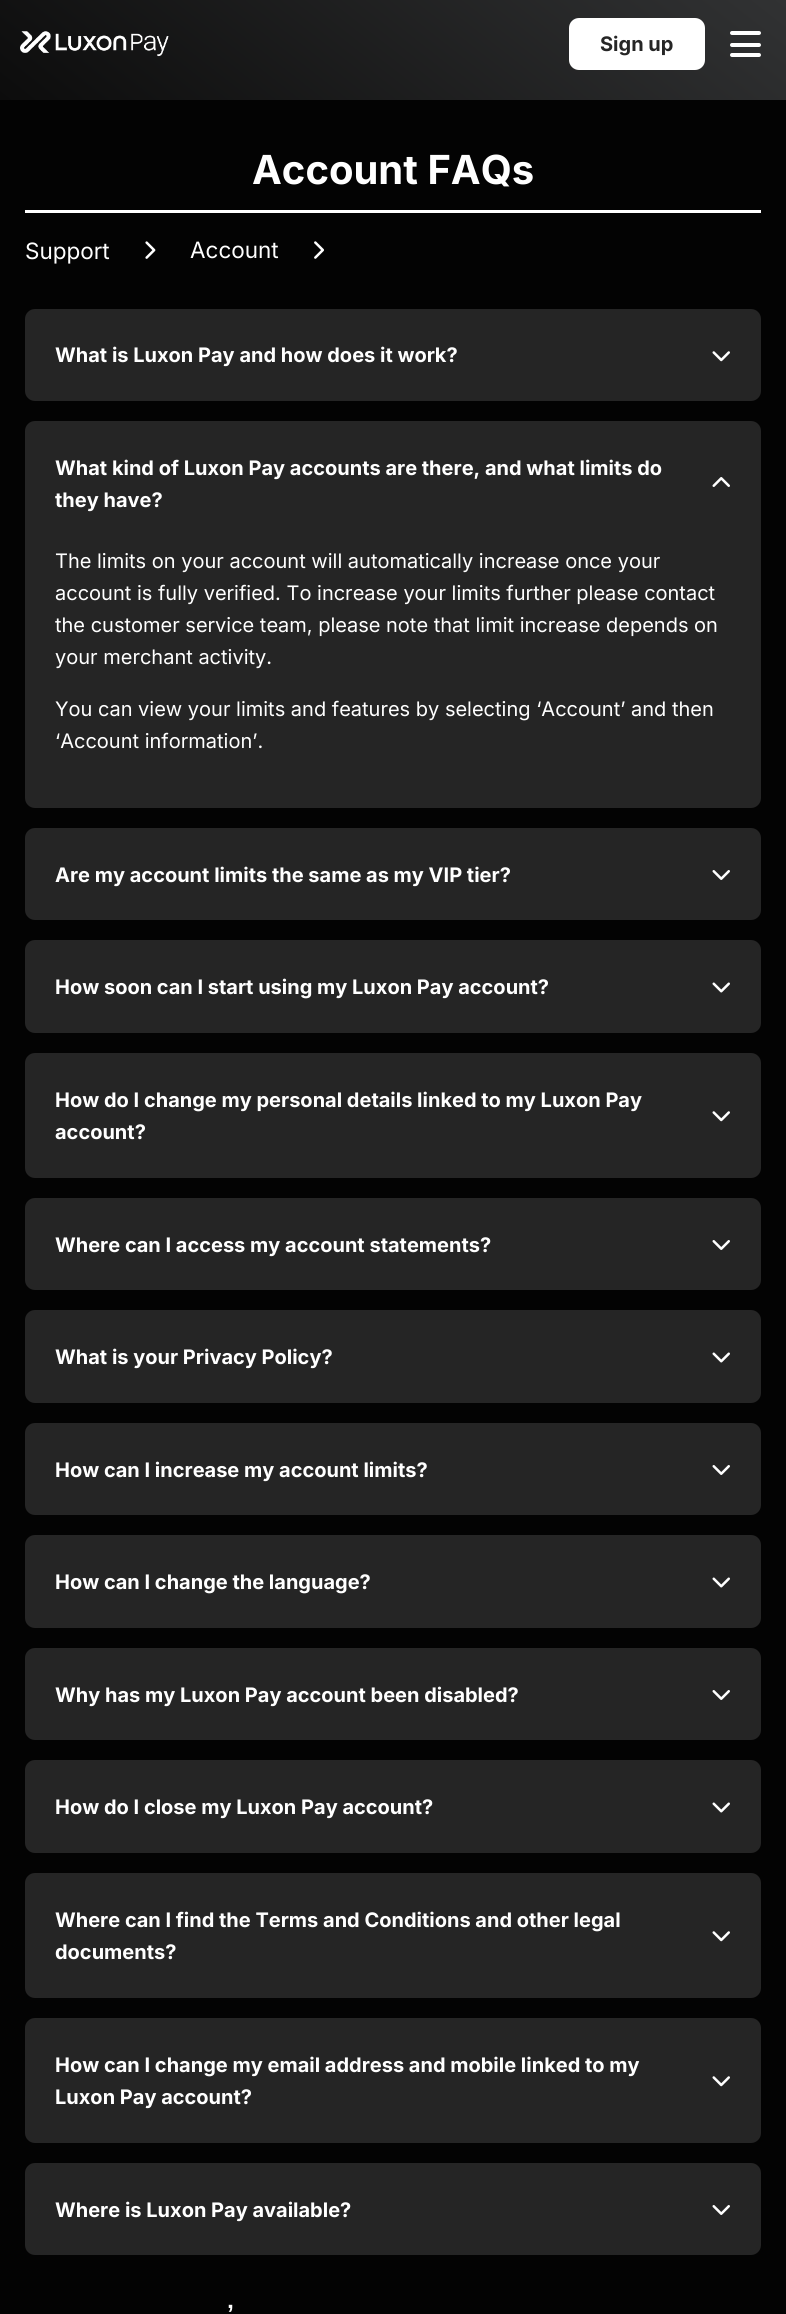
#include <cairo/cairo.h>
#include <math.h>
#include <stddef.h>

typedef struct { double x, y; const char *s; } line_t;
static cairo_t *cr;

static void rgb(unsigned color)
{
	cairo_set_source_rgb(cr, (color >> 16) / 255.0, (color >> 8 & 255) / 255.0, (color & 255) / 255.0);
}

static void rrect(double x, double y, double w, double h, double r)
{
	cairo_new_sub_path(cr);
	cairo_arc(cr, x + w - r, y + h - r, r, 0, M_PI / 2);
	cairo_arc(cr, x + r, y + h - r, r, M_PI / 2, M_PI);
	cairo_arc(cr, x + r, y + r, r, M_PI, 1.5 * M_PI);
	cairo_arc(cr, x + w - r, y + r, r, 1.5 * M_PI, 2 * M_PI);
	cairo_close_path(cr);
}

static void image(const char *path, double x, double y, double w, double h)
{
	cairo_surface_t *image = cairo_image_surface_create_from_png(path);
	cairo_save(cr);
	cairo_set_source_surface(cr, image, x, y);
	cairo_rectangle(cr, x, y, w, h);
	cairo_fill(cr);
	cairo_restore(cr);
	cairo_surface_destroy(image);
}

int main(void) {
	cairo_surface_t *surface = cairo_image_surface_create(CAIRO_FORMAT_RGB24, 786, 2314);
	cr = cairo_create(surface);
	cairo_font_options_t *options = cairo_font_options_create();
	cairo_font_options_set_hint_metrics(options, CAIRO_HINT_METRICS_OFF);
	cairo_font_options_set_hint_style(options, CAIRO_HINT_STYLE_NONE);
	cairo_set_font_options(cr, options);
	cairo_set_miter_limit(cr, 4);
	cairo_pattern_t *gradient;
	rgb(0x030303);
	cairo_paint(cr);
	gradient = cairo_pattern_create_linear(220, 272, 566, -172);
	cairo_pattern_add_color_stop_rgba(gradient, 0, 0.047, 0.047, 0.047, 1);
	cairo_pattern_add_color_stop_rgba(gradient, 1, 0.192, 0.196, 0.2, 1);
	cairo_set_source(cr, gradient);
	cairo_pattern_destroy(gradient);
	cairo_rectangle(cr, 0, 0, 786, 100);
	cairo_fill(cr);
	image("img/1.png", 20, 31, 149, 26);
	rgb(0xffffff);
	rrect(569, 18, 136, 52, 10);
	cairo_fill(cr);
	rrect(730, 31, 31, 4, 2);
	cairo_fill(cr);
	rrect(730, 43, 31, 4, 2);
	cairo_fill(cr);
	rrect(730, 53, 31, 4, 2);
	cairo_fill(cr);
	cairo_rectangle(cr, 25, 210, 736, 3);
	cairo_fill(cr);
	image("img/2.png", 145, 241, 11, 18);
	image("img/3.png", 314, 241, 10, 18);
	rgb(0x252525);
	rrect(25, 309, 736, 92, 10);
	cairo_fill(cr);
	image("img/4.png", 712, 351, 18, 11);
	rrect(25, 421, 736, 387, 10);
	cairo_fill(cr);
	image("img/5.png", 712, 477, 18, 10);
	rrect(25, 828, 736, 92, 10);
	cairo_fill(cr);
	image("img/6.png", 712, 870, 18, 10);
	rrect(25, 940, 736, 93, 10);
	cairo_fill(cr);
	image("img/7.png", 712, 982, 18, 11);
	rrect(25, 1053, 736, 125, 10);
	cairo_fill(cr);
	image("img/4.png", 712, 1111, 18, 11);
	rrect(25, 1198, 736, 92, 10);
	cairo_fill(cr);
	image("img/6.png", 712, 1240, 18, 10);
	rrect(25, 1310, 736, 93, 10);
	cairo_fill(cr);
	image("img/7.png", 712, 1352, 18, 11);
	rrect(25, 1423, 736, 92, 10);
	cairo_fill(cr);
	image("img/6.png", 712, 1465, 18, 10);
	rrect(25, 1535, 736, 93, 10);
	cairo_fill(cr);
	image("img/7.png", 712, 1577, 18, 11);
	rrect(25, 1648, 736, 92, 10);
	cairo_fill(cr);
	image("img/6.png", 712, 1690, 18, 10);
	rrect(25, 1760, 736, 93, 10);
	cairo_fill(cr);
	image("img/7.png", 712, 1802, 18, 11);
	rrect(25, 1873, 736, 125, 10);
	cairo_fill(cr);
	image("img/4.png", 712, 1931, 18, 11);
	rrect(25, 2018, 736, 125, 10);
	cairo_fill(cr);
	image("img/4.png", 712, 2076, 18, 11);
	rrect(25, 2163, 736, 92, 10);
	cairo_fill(cr);
	image("img/6.png", 712, 2205, 18, 10);
	cairo_select_font_face(cr, "Inter", CAIRO_FONT_SLANT_NORMAL, CAIRO_FONT_WEIGHT_BOLD);
	cairo_set_font_size(cr, 20);
	rgb(0x262626);
	cairo_move_to(cr, 600, 51);
	cairo_show_text(cr, "Sign up");
	cairo_set_font_size(cr, 40);
	rgb(0xffffff);
	cairo_move_to(cr, 252, 184);
	cairo_show_text(cr, "Account FAQs");
	cairo_select_font_face(cr, "Inter", CAIRO_FONT_SLANT_NORMAL, CAIRO_FONT_WEIGHT_NORMAL);
	cairo_set_font_size(cr, 22.5);
	cairo_move_to(cr, 25, 259);
	cairo_show_text(cr, "Support");
	cairo_move_to(cr, 190, 258);
	cairo_show_text(cr, "Account");
	cairo_select_font_face(cr, "Inter", CAIRO_FONT_SLANT_NORMAL, CAIRO_FONT_WEIGHT_BOLD);
	cairo_set_font_size(cr, 20);
	{
		static const line_t items[] = {
			{55, 362, "What is Luxon Pay and how does it work?"},
			{55, 475, "What kind of Luxon Pay accounts are there, and what limits do"},
			{55, 507, "they have?"},
		};
		for (size_t i = 0; i < sizeof items / sizeof *items; i++) {
			cairo_move_to(cr, items[i].x, items[i].y);
			cairo_show_text(cr, items[i].s);
		}
	}
	cairo_select_font_face(cr, "Inter", CAIRO_FONT_SLANT_NORMAL, CAIRO_FONT_WEIGHT_NORMAL);
	{
		static const line_t items[] = {
			{55, 568, "The limits on your account will automatically increase once your"},
			{55, 600, "account is fully verified. To increase your limits further please contact"},
			{55, 632, "the customer service team, please note that limit increase depends on"},
			{55, 664, "your merchant activity."},
			{55, 716, "You can view your limits and features by selecting ‘Account’ and then"},
			{55, 748, "‘Account information’."},
		};
		for (size_t i = 0; i < sizeof items / sizeof *items; i++) {
			cairo_move_to(cr, items[i].x, items[i].y);
			cairo_show_text(cr, items[i].s);
		}
	}
	cairo_select_font_face(cr, "Inter", CAIRO_FONT_SLANT_NORMAL, CAIRO_FONT_WEIGHT_BOLD);
	{
		static const line_t items[] = {
			{55, 882, "Are my account limits the same as my VIP tier?"},
			{55, 994, "How soon can I start using my Luxon Pay account?"},
			{55, 1107, "How do I change my personal details linked to my Luxon Pay"},
			{55, 1139, "account?"},
			{55, 1252, "Where can I access my account statements?"},
			{55, 1364, "What is your Privacy Policy?"},
			{55, 1477, "How can I increase my account limits?"},
			{55, 1589, "How can I change the language?"},
			{55, 1702, "Why has my Luxon Pay account been disabled?"},
			{55, 1814, "How do I close my Luxon Pay account?"},
			{55, 1927, "Where can I find the Terms and Conditions and other legal"},
			{55, 1959, "documents?"},
			{55, 2072, "How can I change my email address and mobile linked to my"},
			{55, 2104, "Luxon Pay account?"},
			{55, 2217, "Where is Luxon Pay available?"},
		};
		for (size_t i = 0; i < sizeof items / sizeof *items; i++) {
			cairo_move_to(cr, items[i].x, items[i].y);
			cairo_show_text(cr, items[i].s);
		}
	}
	cairo_select_font_face(cr, "Liberation Sans", CAIRO_FONT_SLANT_NORMAL, CAIRO_FONT_WEIGHT_BOLD);
	cairo_set_font_size(cr, 25);
	cairo_move_to(cr, 227, 2322);
	cairo_show_text(cr, "’");
	cairo_surface_write_to_png(surface, "page.png");
	cairo_font_options_destroy(options);
	cairo_destroy(cr);
	cairo_surface_destroy(surface);
	return 0;
}
